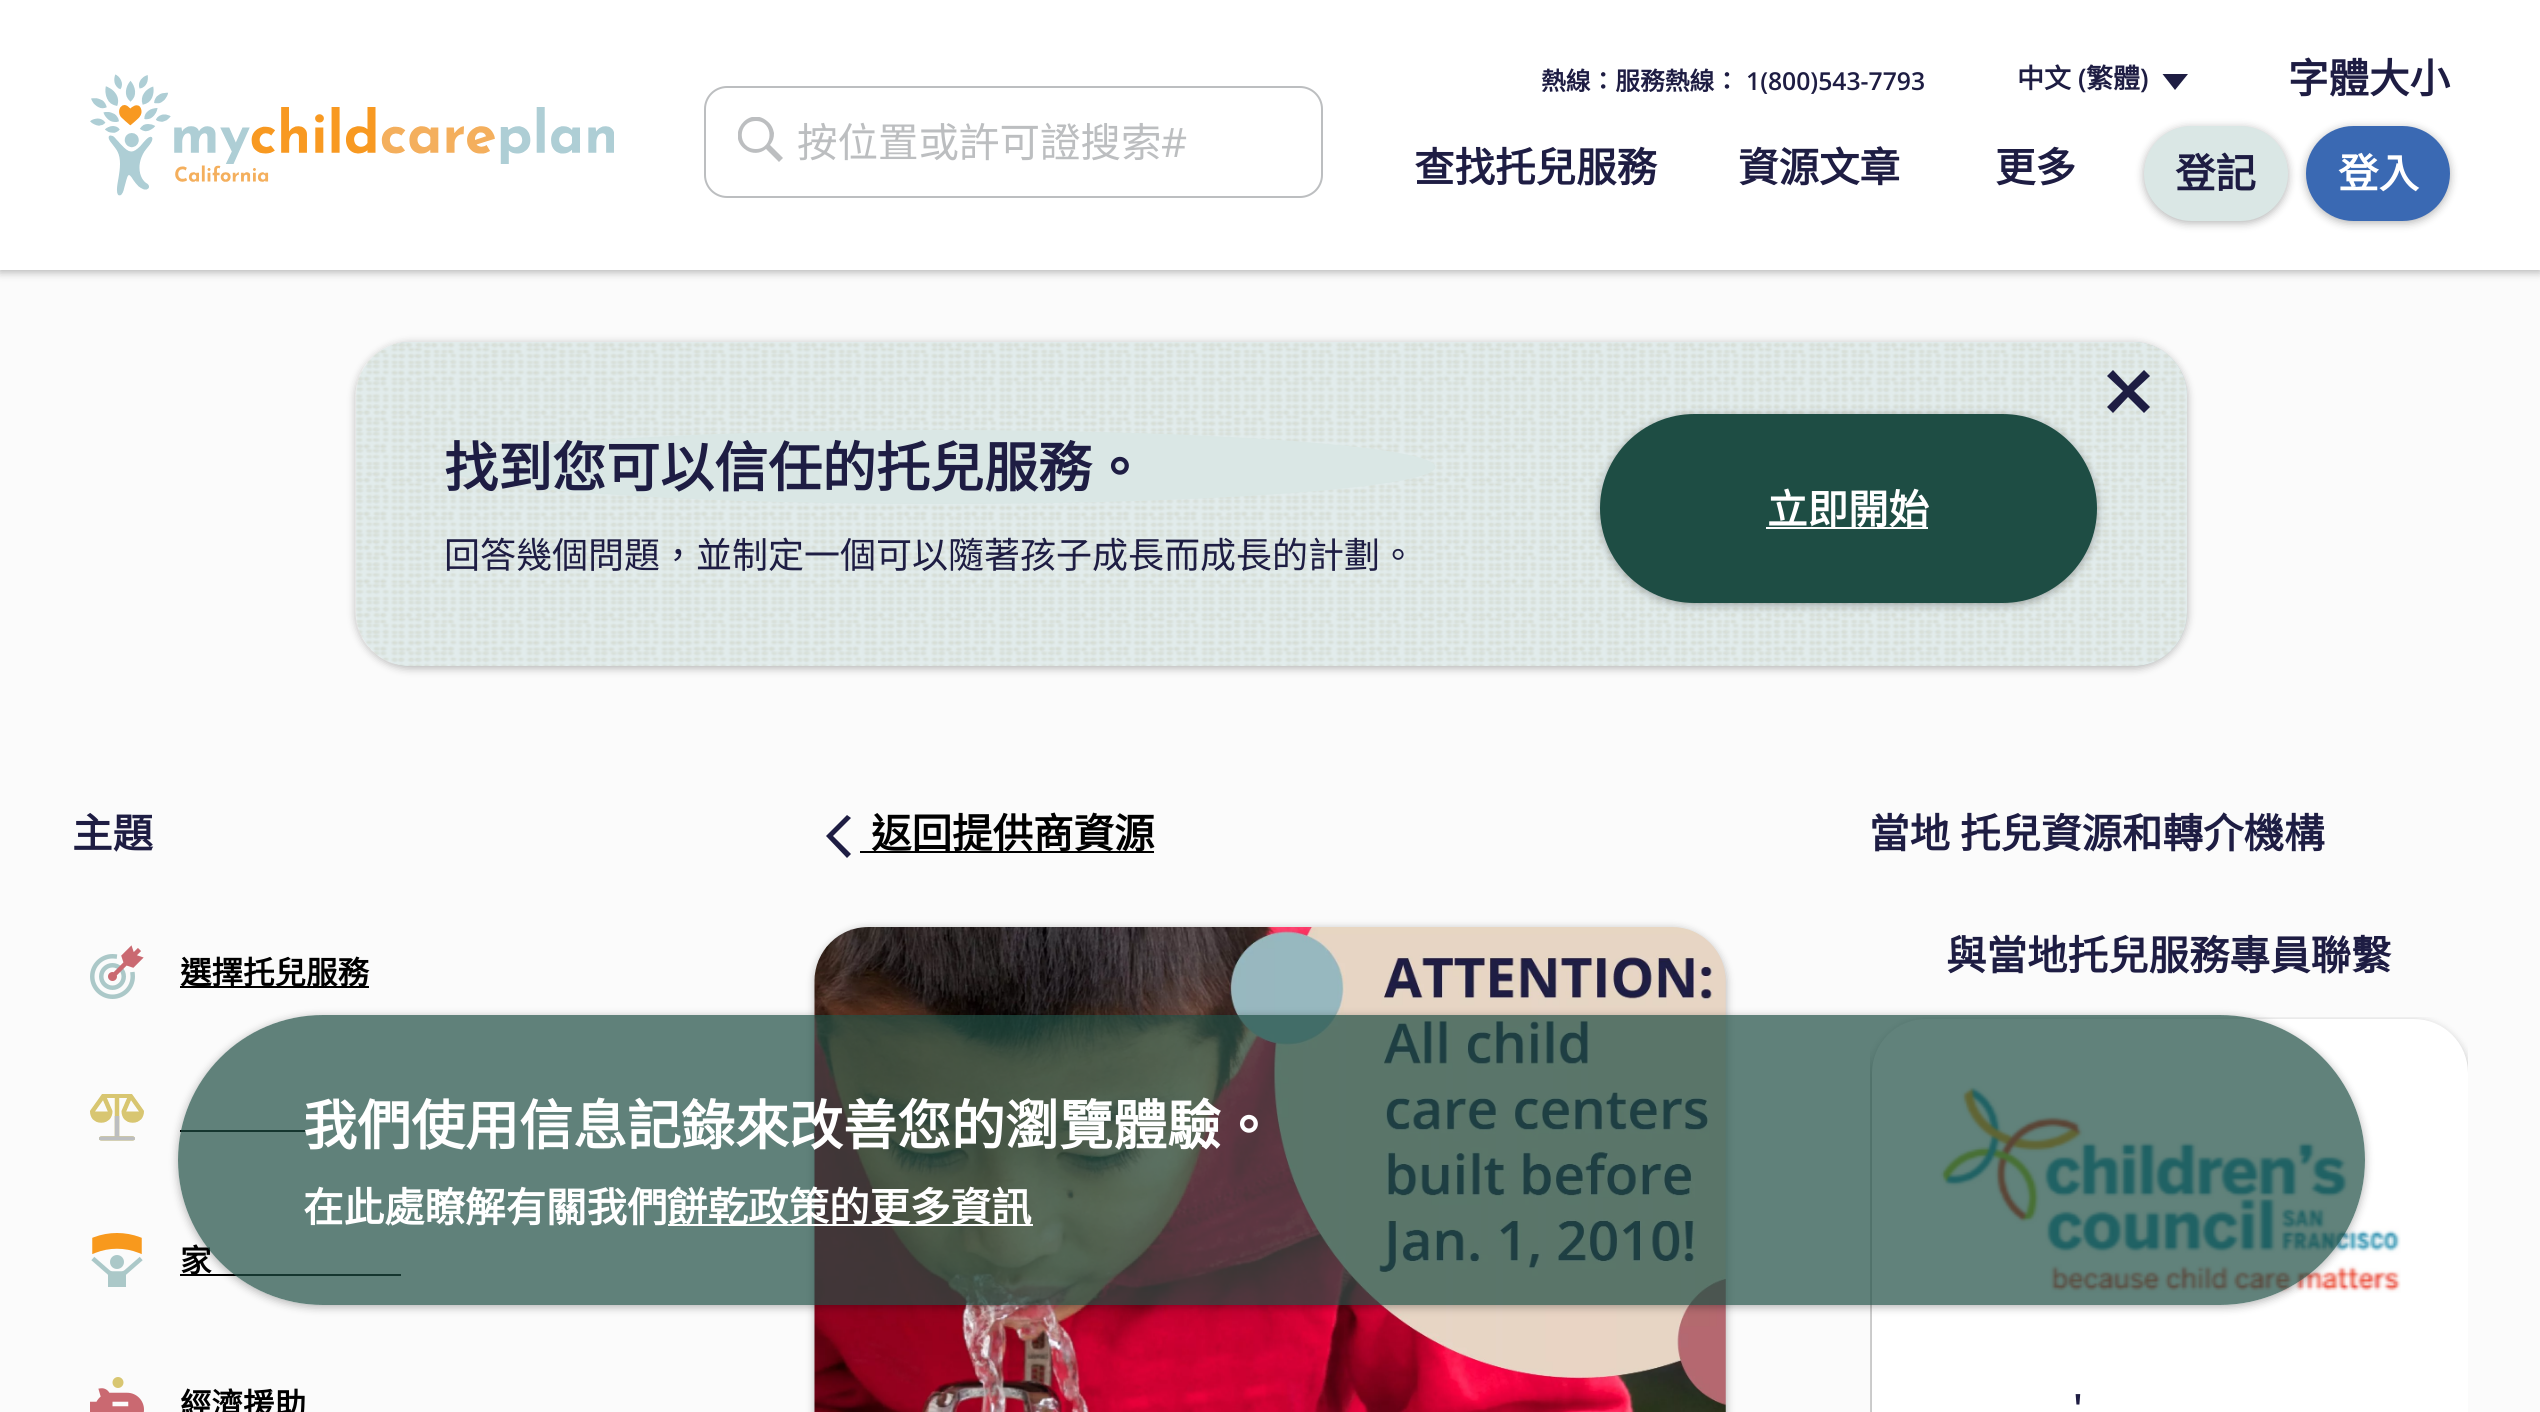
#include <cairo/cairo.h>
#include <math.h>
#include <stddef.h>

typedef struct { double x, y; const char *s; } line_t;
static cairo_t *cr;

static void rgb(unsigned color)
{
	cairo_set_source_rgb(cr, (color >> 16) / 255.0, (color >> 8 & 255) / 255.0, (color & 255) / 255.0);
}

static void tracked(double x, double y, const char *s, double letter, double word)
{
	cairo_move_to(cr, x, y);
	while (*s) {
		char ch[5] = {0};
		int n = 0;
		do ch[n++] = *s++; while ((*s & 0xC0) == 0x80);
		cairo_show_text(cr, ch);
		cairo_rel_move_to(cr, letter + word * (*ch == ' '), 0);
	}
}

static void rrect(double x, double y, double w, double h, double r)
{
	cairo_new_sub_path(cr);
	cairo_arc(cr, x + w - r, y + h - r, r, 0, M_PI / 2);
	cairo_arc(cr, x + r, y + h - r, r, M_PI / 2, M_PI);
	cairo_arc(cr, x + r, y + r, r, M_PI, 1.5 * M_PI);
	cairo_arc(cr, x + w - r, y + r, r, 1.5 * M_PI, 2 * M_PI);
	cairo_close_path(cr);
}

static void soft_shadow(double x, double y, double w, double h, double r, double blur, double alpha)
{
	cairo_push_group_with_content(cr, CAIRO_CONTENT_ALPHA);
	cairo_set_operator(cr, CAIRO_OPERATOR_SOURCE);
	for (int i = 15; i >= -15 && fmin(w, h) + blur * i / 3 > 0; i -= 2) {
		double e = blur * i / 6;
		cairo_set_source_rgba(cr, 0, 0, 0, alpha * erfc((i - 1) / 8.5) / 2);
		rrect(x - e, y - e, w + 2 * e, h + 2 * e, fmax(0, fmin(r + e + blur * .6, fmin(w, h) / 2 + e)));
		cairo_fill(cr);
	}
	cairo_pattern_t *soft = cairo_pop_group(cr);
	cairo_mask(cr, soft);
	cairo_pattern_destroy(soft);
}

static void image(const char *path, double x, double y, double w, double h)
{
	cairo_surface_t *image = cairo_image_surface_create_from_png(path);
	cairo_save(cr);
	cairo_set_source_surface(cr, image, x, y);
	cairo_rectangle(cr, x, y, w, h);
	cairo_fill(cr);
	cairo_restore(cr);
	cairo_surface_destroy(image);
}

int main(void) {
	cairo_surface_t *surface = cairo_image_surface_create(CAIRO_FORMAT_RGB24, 2540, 1412);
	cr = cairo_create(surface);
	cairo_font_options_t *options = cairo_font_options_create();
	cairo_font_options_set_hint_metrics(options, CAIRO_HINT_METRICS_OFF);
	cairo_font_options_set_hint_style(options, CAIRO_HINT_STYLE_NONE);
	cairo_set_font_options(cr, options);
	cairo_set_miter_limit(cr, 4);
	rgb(0xfbfbfb);
	cairo_paint(cr);
	rgb(0x000000);
	soft_shadow(0, 2, 2540, 270, 0, 4.5, 0.3);
	rgb(0xffffff);
	cairo_rectangle(cr, 0, 0, 2540, 270);
	cairo_fill(cr);
	image("img/1.png", 90, 74, 524, 122);
	rrect(705, 87, 617, 110, 22);
	rgb(0xbcbec0);
	cairo_stroke(cr);
	cairo_save(cr);
	cairo_rectangle(cr, 738, 117, 45, 45);
	cairo_clip(cr);
	cairo_new_path(cr);
	cairo_move_to(cr, 779, 162);
	cairo_line_to(cr, 783, 158);
	cairo_line_to(cr, 770, 145);
	cairo_curve_to(cr, 773, 141, 774, 138, 774, 133);
	cairo_curve_to(cr, 773, 128, 771, 124, 767, 121);
	cairo_curve_to(cr, 748, 105, 725, 136, 746, 150);
	cairo_curve_to(cr, 752, 154, 760, 154, 766, 149);
	cairo_close_path(cr);
	cairo_move_to(cr, 756, 149);
	cairo_curve_to(cr, 737, 149, 737, 121, 756, 121);
	cairo_curve_to(cr, 774, 121, 774, 149, 756, 149);
	cairo_close_path(cr);
	cairo_fill(cr);
	cairo_restore(cr);
	rgb(0x1e1d43);
	cairo_new_path(cr);
	cairo_move_to(cr, 2175, 90);
	cairo_line_to(cr, 2162.5, 74);
	cairo_line_to(cr, 2188, 74);
	cairo_close_path(cr);
	cairo_fill(cr);
	rgb(0x000000);
	soft_shadow(2144, 128, 144, 95, 47.5, 4.5, 0.3);
	rgb(0xdae7e5);
	rrect(2144, 126, 144, 95, 47.5);
	cairo_fill(cr);
	rgb(0x000000);
	soft_shadow(2306, 128, 144, 95, 47.5, 4.5, 0.3);
	rgb(0x3a69b3);
	rrect(2306, 126, 144, 95, 47.5);
	cairo_fill(cr);
	rgb(0x000000);
	soft_shadow(356, 344, 1831, 324, 54, 4.5, 0.3);
	rgb(0xabc8c8);
	rrect(356, 342, 1831, 324, 54);
	cairo_fill(cr);
	image("img/2.png", 355, 342, 1832, 324);
	rgb(0x000000);
	soft_shadow(1600, 416, 497, 189, 94.5, 4.5, 0.3);
	rgb(0x1e1d43);
	cairo_set_fill_rule(cr, CAIRO_FILL_RULE_EVEN_ODD);
	cairo_new_path(cr);
	cairo_move_to(cr, 2144, 370);
	cairo_line_to(cr, 2150, 376);
	cairo_line_to(cr, 2134, 391);
	cairo_line_to(cr, 2150, 407);
	cairo_line_to(cr, 2144, 413);
	cairo_line_to(cr, 2128, 397);
	cairo_line_to(cr, 2113, 413);
	cairo_line_to(cr, 2107, 407);
	cairo_line_to(cr, 2123, 391);
	cairo_line_to(cr, 2107, 376);
	cairo_line_to(cr, 2113, 370);
	cairo_line_to(cr, 2128, 386);
	cairo_close_path(cr);
	cairo_fill(cr);
	rgb(0xdae7e5);
	cairo_new_path(cr);
	cairo_move_to(cr, 940.5, 430);
	cairo_curve_to(cr, 1214, 430, 1435.5, 446.5, 1435.5, 467);
	cairo_curve_to(cr, 1435.5, 487.5, 1214, 504, 940.5, 504);
	cairo_curve_to(cr, 667, 504, 445.5, 487.5, 445.5, 467);
	cairo_curve_to(cr, 445.5, 446.5, 667, 430, 940.5, 430);
	cairo_close_path(cr);
	cairo_fill(cr);
	rgb(0x1e4d44);
	rrect(1600, 414, 497, 189, 94.5);
	cairo_fill(cr);
	rgb(0xffffff);
	cairo_rectangle(cr, 1766, 527, 162, 2);
	cairo_fill(cr);
	image("img/3.png", 90, 945, 54, 54);
	rgb(0x000000);
	cairo_rectangle(cr, 180, 986, 189, 2);
	cairo_fill(cr);
	image("img/4.png", 90, 1094, 54, 47);
	cairo_rectangle(cr, 180, 1130, 126, 2);
	cairo_fill(cr);
	image("img/5.png", 91, 1233, 52, 54);
	cairo_rectangle(cr, 180, 1274, 221, 2);
	cairo_fill(cr);
	image("img/6.png", 90, 1377, 54, 35);
	rgb(0x1e1d43);
	cairo_new_path(cr);
	cairo_move_to(cr, 847, 815);
	cairo_line_to(cr, 851, 818);
	cairo_line_to(cr, 833, 836);
	cairo_line_to(cr, 851, 854);
	cairo_line_to(cr, 847, 858);
	cairo_line_to(cr, 826, 836);
	cairo_close_path(cr);
	cairo_fill(cr);
	rgb(0x000000);
	cairo_rectangle(cr, 860, 851, 294, 2);
	cairo_fill(cr);
	rgb(0x000000);
	soft_shadow(815, 929, 911, 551, 54, 4.5, 0.3);
	image("img/7.png", 814, 927, 912, 485);
	cairo_save(cr);
	cairo_set_fill_rule(cr, CAIRO_FILL_RULE_WINDING);
	cairo_rectangle(cr, 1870, 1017, 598, 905);
	cairo_clip(cr);
	soft_shadow(1271, 1022, 597, 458, 54, 4.5, 0.3);
	soft_shadow(1872, 1022, 596, 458, 54, 4.5, 0.3);
	cairo_restore(cr);
	rgb(0xffffff);
	rrect(1872, 1019, 596, 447, 54);
	cairo_fill(cr);
	image("img/8.png", 1939, 1086, 462, 207);
	cairo_save(cr);
	cairo_new_path(cr);
	cairo_move_to(cr, 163, 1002);
	cairo_line_to(cr, 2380, 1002);
	cairo_line_to(cr, 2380, 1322);
	cairo_line_to(cr, 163, 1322);
	cairo_close_path(cr);
	cairo_move_to(cr, 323, 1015);
	cairo_line_to(cr, 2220, 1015);
	cairo_curve_to(cr, 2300, 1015, 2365, 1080, 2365, 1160);
	cairo_curve_to(cr, 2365, 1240, 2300, 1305, 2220, 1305);
	cairo_line_to(cr, 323, 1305);
	cairo_curve_to(cr, 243, 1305, 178, 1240, 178, 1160);
	cairo_curve_to(cr, 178, 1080, 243, 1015, 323, 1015);
	cairo_close_path(cr);
	cairo_clip(cr);
	rgb(0x000000);
	soft_shadow(178, 1017, 2187, 290, 145, 4.5, 0.3);
	cairo_restore(cr);
	cairo_select_font_face(cr, "Noto Sans CJK TC", CAIRO_FONT_SLANT_NORMAL, CAIRO_FONT_WEIGHT_NORMAL);
	cairo_set_font_size(cr, 40.5);
	rgb(0xbcbec0);
	cairo_move_to(cr, 797, 157);
	cairo_show_text(cr, "按位置或許可證搜索");
	cairo_select_font_face(cr, "Open Sans", CAIRO_FONT_SLANT_NORMAL, CAIRO_FONT_WEIGHT_NORMAL);
	cairo_move_to(cr, 1161, 157);
	cairo_show_text(cr, "#");
	cairo_select_font_face(cr, "Noto Sans CJK TC", CAIRO_FONT_SLANT_NORMAL, CAIRO_FONT_WEIGHT_BOLD);
	cairo_set_font_size(cr, 24.75);
	rgb(0x1e1d43);
	cairo_move_to(cr, 1541, 90);
	cairo_show_text(cr, "熱線：服務熱線：");
	cairo_select_font_face(cr, "Open Sans SemiBold", CAIRO_FONT_SLANT_NORMAL, CAIRO_FONT_WEIGHT_NORMAL);
	cairo_move_to(cr, 1746, 90);
	cairo_show_text(cr, "1(800)543-7793");
	cairo_select_font_face(cr, "Noto Sans CJK TC", CAIRO_FONT_SLANT_NORMAL, CAIRO_FONT_WEIGHT_BOLD);
	cairo_set_font_size(cr, 27);
	cairo_move_to(cr, 2017, 88);
	cairo_show_text(cr, "中文");
	cairo_select_font_face(cr, "Open Sans SemiBold", CAIRO_FONT_SLANT_NORMAL, CAIRO_FONT_WEIGHT_NORMAL);
	cairo_move_to(cr, 2078, 88);
	cairo_show_text(cr, "(");
	cairo_select_font_face(cr, "Noto Sans CJK TC", CAIRO_FONT_SLANT_NORMAL, CAIRO_FONT_WEIGHT_BOLD);
	cairo_move_to(cr, 2086, 88);
	cairo_show_text(cr, "繁體");
	cairo_select_font_face(cr, "Open Sans SemiBold", CAIRO_FONT_SLANT_NORMAL, CAIRO_FONT_WEIGHT_NORMAL);
	cairo_move_to(cr, 2140, 88);
	cairo_show_text(cr, ")");
	cairo_select_font_face(cr, "Noto Sans CJK TC", CAIRO_FONT_SLANT_NORMAL, CAIRO_FONT_WEIGHT_BOLD);
	cairo_set_font_size(cr, 40.5);
	{
		static const line_t items[] = {
			{2288, 93, "字體大小"},
			{1414, 182, "查找托兒服務"},
			{1738, 182, "資源文章"},
			{1995, 182, "更多"},
			{2175, 188, "登記"},
		};
		for (size_t i = 0; i < sizeof items / sizeof *items; i++) {
			cairo_move_to(cr, items[i].x, items[i].y);
			cairo_show_text(cr, items[i].s);
		}
	}
	rgb(0xffffff);
	cairo_move_to(cr, 2338, 188);
	cairo_show_text(cr, "登入");
	cairo_set_font_size(cr, 54);
	rgb(0x1e1d43);
	cairo_move_to(cr, 444, 487);
	cairo_show_text(cr, "找到您可以信任的托兒服務。");
	cairo_select_font_face(cr, "Noto Sans CJK TC", CAIRO_FONT_SLANT_NORMAL, CAIRO_FONT_WEIGHT_NORMAL);
	cairo_set_font_size(cr, 36);
	cairo_move_to(cr, 444, 568);
	cairo_show_text(cr, "回答幾個問題，並制定一個可以隨著孩子成長而成長的計劃。");
	cairo_select_font_face(cr, "Noto Sans CJK TC", CAIRO_FONT_SLANT_NORMAL, CAIRO_FONT_WEIGHT_BOLD);
	cairo_set_font_size(cr, 40.5);
	rgb(0xffffff);
	cairo_move_to(cr, 1767, 524);
	cairo_show_text(cr, "立即開始");
	rgb(0x1e1d43);
	cairo_move_to(cr, 72, 848);
	cairo_show_text(cr, "主題");
	cairo_set_font_size(cr, 31.5);
	rgb(0x000000);
	{
		static const line_t items[] = {
			{180, 984, "選擇托兒服務"},
			{180, 1272, "家"},
			{180, 1416, "經濟援助"},
		};
		for (size_t i = 0; i < sizeof items / sizeof *items; i++) {
			cairo_move_to(cr, items[i].x, items[i].y);
			cairo_show_text(cr, items[i].s);
		}
	}
	cairo_set_font_size(cr, 40.5);
	cairo_move_to(cr, 871, 848);
	cairo_show_text(cr, "返回提供商資源");
	rgb(0x1e1d43);
	tracked(1869, 848, "當地 托兒資源和轉介機構", 0, 1);
	cairo_move_to(cr, 1946, 970);
	cairo_show_text(cr, "與當地托兒服務專員聯繫");
	cairo_select_font_face(cr, "Open Sans SemiBold", CAIRO_FONT_SLANT_NORMAL, CAIRO_FONT_WEIGHT_NORMAL);
	cairo_move_to(cr, 2073, 1423);
	cairo_show_text(cr, "'");
	cairo_set_source_rgba(cr, 0.118, 0.302, 0.267, 0.7);
	rrect(178, 1015, 2187, 290, 145);
	cairo_fill(cr);
	cairo_select_font_face(cr, "Noto Sans CJK TC", CAIRO_FONT_SLANT_NORMAL, CAIRO_FONT_WEIGHT_BOLD);
	cairo_set_font_size(cr, 54);
	rgb(0xffffff);
	cairo_move_to(cr, 303, 1145);
	cairo_show_text(cr, "我們使用信息記錄來改善您的瀏覽體驗。");
	cairo_set_font_size(cr, 40.5);
	cairo_move_to(cr, 303, 1222);
	cairo_show_text(cr, "在此處瞭解有關我們");
	cairo_rectangle(cr, 668, 1224, 365, 2);
	cairo_fill(cr);
	cairo_move_to(cr, 667, 1222);
	cairo_show_text(cr, "餅乾政策的更多資訊");
	cairo_surface_write_to_png(surface, "page.png");
	cairo_font_options_destroy(options);
	cairo_destroy(cr);
	cairo_surface_destroy(surface);
	return 0;
}
